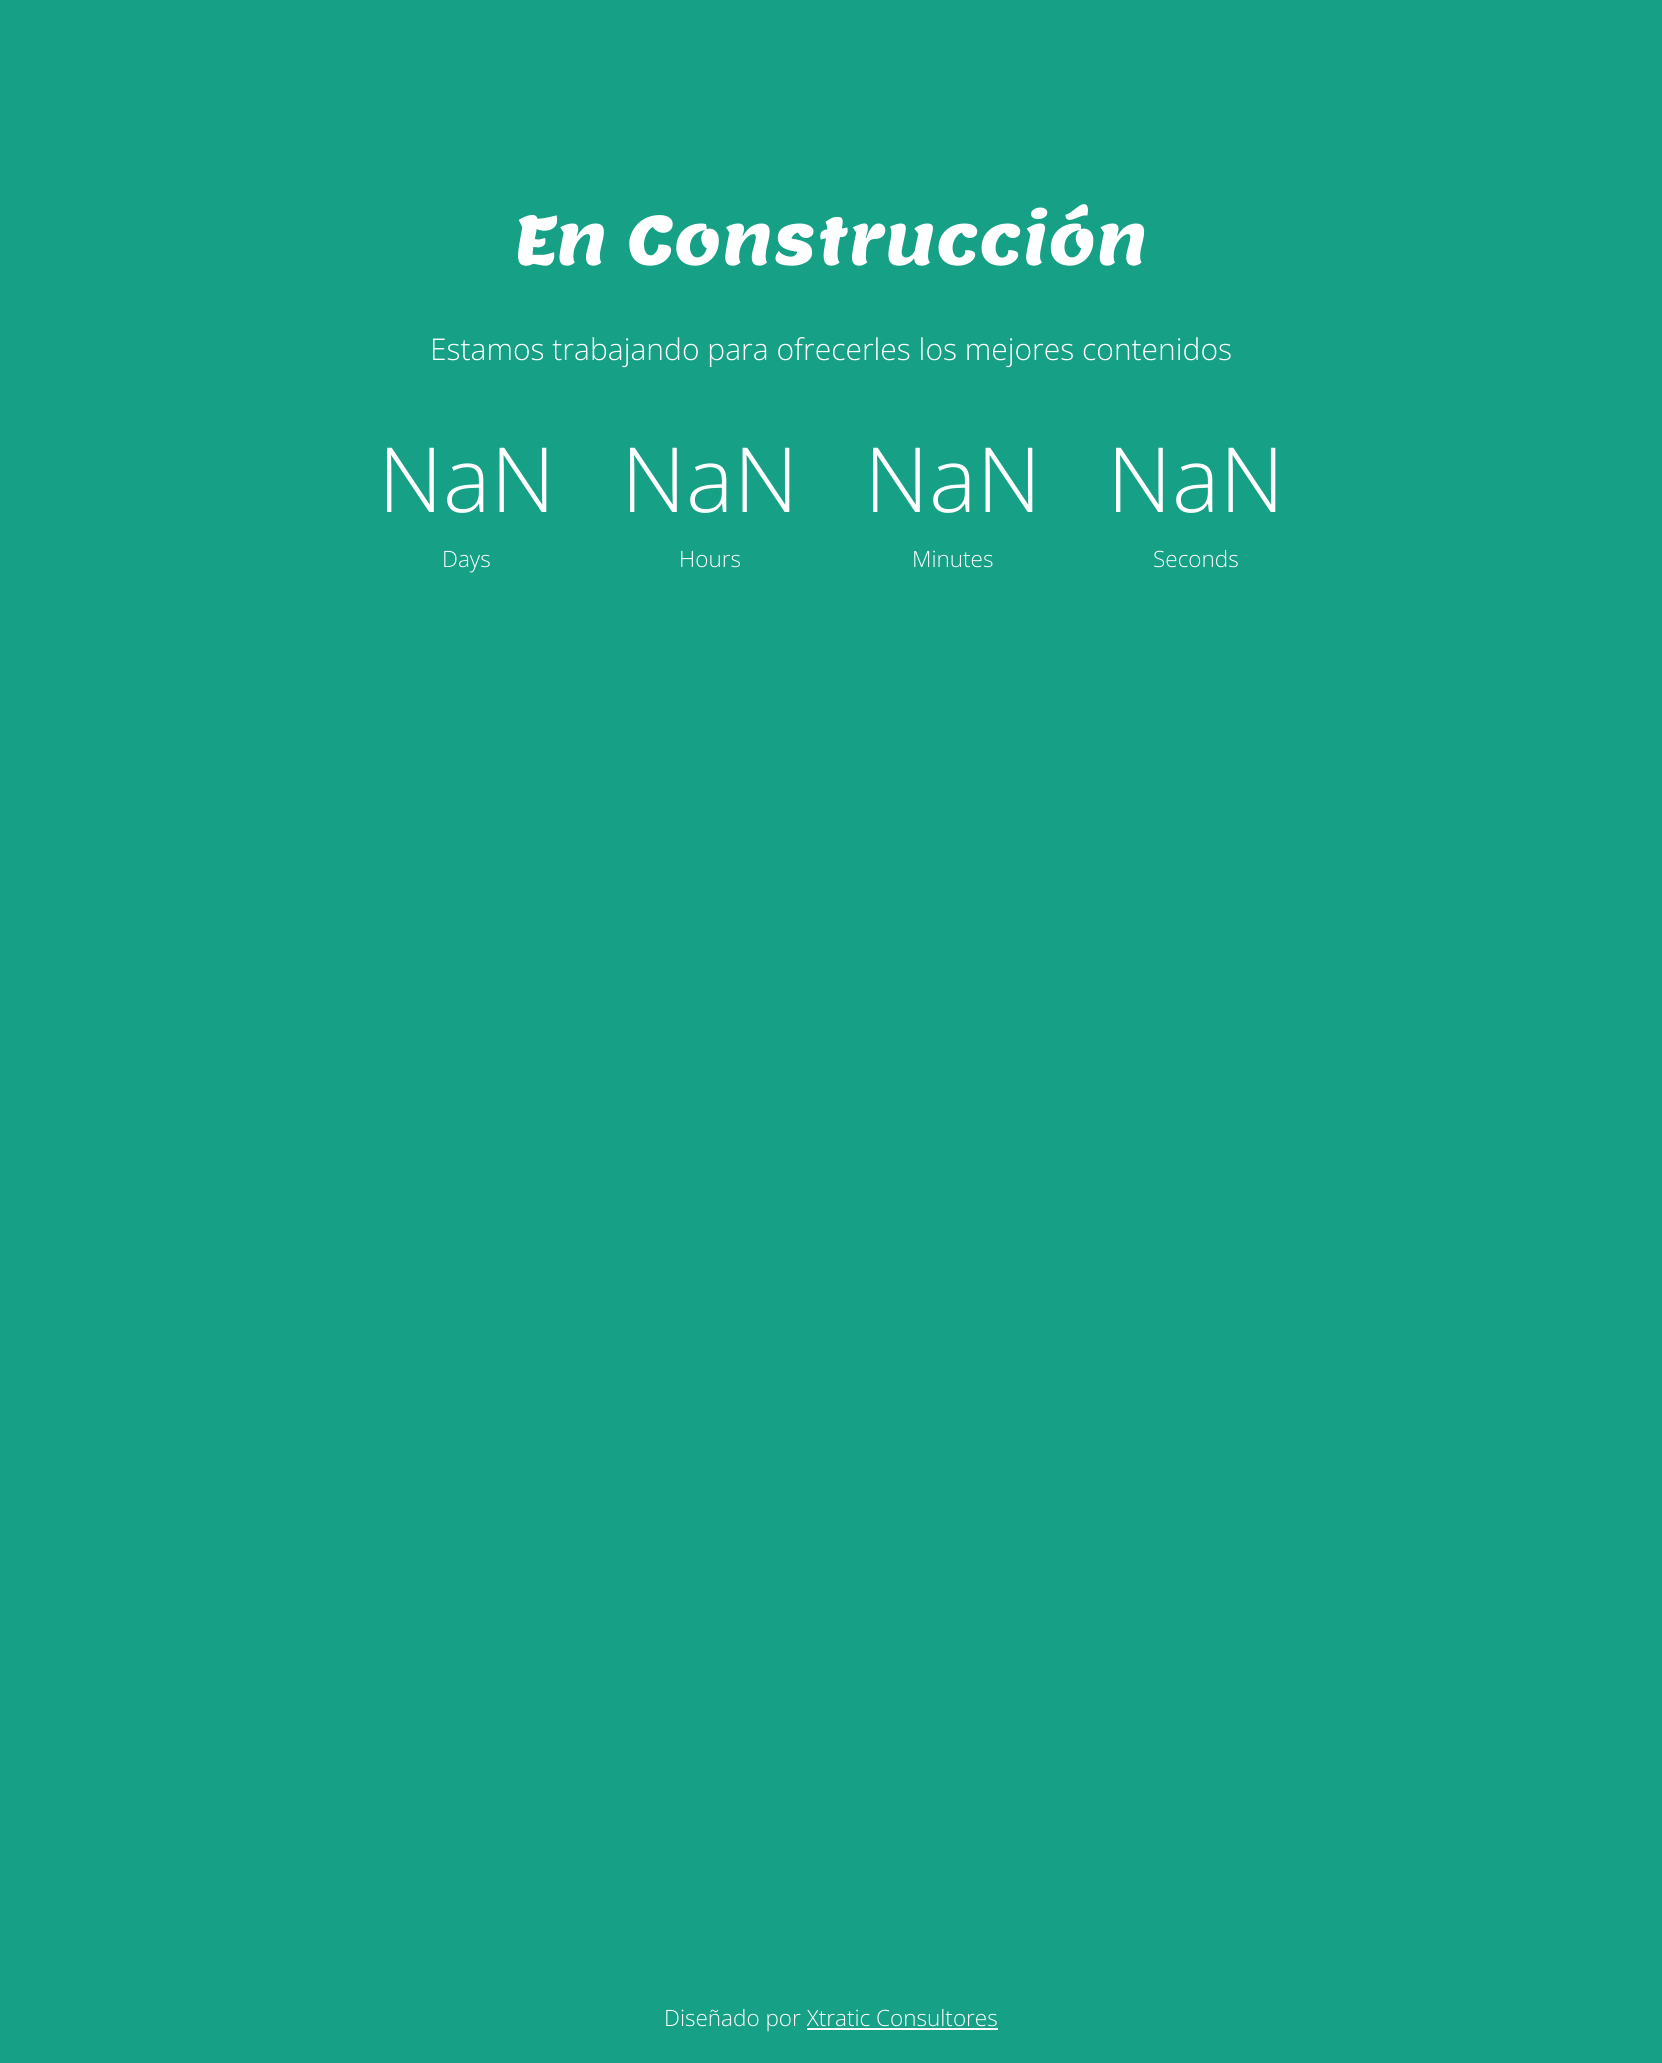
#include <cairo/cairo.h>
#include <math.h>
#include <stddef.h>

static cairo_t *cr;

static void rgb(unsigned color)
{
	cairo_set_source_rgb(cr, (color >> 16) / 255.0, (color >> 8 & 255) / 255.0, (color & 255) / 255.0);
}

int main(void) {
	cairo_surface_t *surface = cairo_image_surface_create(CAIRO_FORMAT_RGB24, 1662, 2063);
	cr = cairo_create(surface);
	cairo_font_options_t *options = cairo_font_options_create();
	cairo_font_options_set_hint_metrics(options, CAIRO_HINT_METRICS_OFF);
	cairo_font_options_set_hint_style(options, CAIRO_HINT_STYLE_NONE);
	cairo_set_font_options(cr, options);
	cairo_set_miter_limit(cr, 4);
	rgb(0x16a085);
	cairo_paint(cr);
	rgb(0xffffff);
	cairo_rectangle(cr, 807, 2028, 191, 2);
	cairo_fill(cr);
	cairo_select_font_face(cr, "Lemon", CAIRO_FONT_SLANT_NORMAL, CAIRO_FONT_WEIGHT_NORMAL);
	cairo_set_font_size(cr, 67.5);
	cairo_move_to(cr, 514, 264);
	cairo_show_text(cr, "En Construcción");
	cairo_select_font_face(cr, "Open Sans Light", CAIRO_FONT_SLANT_NORMAL, CAIRO_FONT_WEIGHT_NORMAL);
	cairo_set_font_size(cr, 30);
	cairo_move_to(cr, 430, 360);
	cairo_show_text(cr, "Estamos trabajando para ofrecerles los mejores contenidos");
	cairo_set_font_size(cr, 90);
	cairo_move_to(cr, 378, 512);
	cairo_show_text(cr, "NaN");
	cairo_set_font_size(cr, 22.5);
	cairo_move_to(cr, 442, 567);
	cairo_show_text(cr, "Days");
	cairo_set_font_size(cr, 90);
	cairo_move_to(cr, 621, 512);
	cairo_show_text(cr, "NaN");
	cairo_set_font_size(cr, 22.5);
	cairo_move_to(cr, 679, 567);
	cairo_show_text(cr, "Hours");
	cairo_set_font_size(cr, 90);
	cairo_move_to(cr, 864, 512);
	cairo_show_text(cr, "NaN");
	cairo_set_font_size(cr, 22.5);
	cairo_move_to(cr, 912, 567);
	cairo_show_text(cr, "Minutes");
	cairo_set_font_size(cr, 90);
	cairo_move_to(cr, 1107, 512);
	cairo_show_text(cr, "NaN");
	cairo_set_font_size(cr, 22.5);
	cairo_move_to(cr, 1153, 567);
	cairo_show_text(cr, "Seconds");
	cairo_move_to(cr, 664, 2026);
	cairo_show_text(cr, "Diseñado por Xtratic Consultores");
	cairo_surface_write_to_png(surface, "page.png");
	cairo_font_options_destroy(options);
	cairo_destroy(cr);
	cairo_surface_destroy(surface);
	return 0;
}
